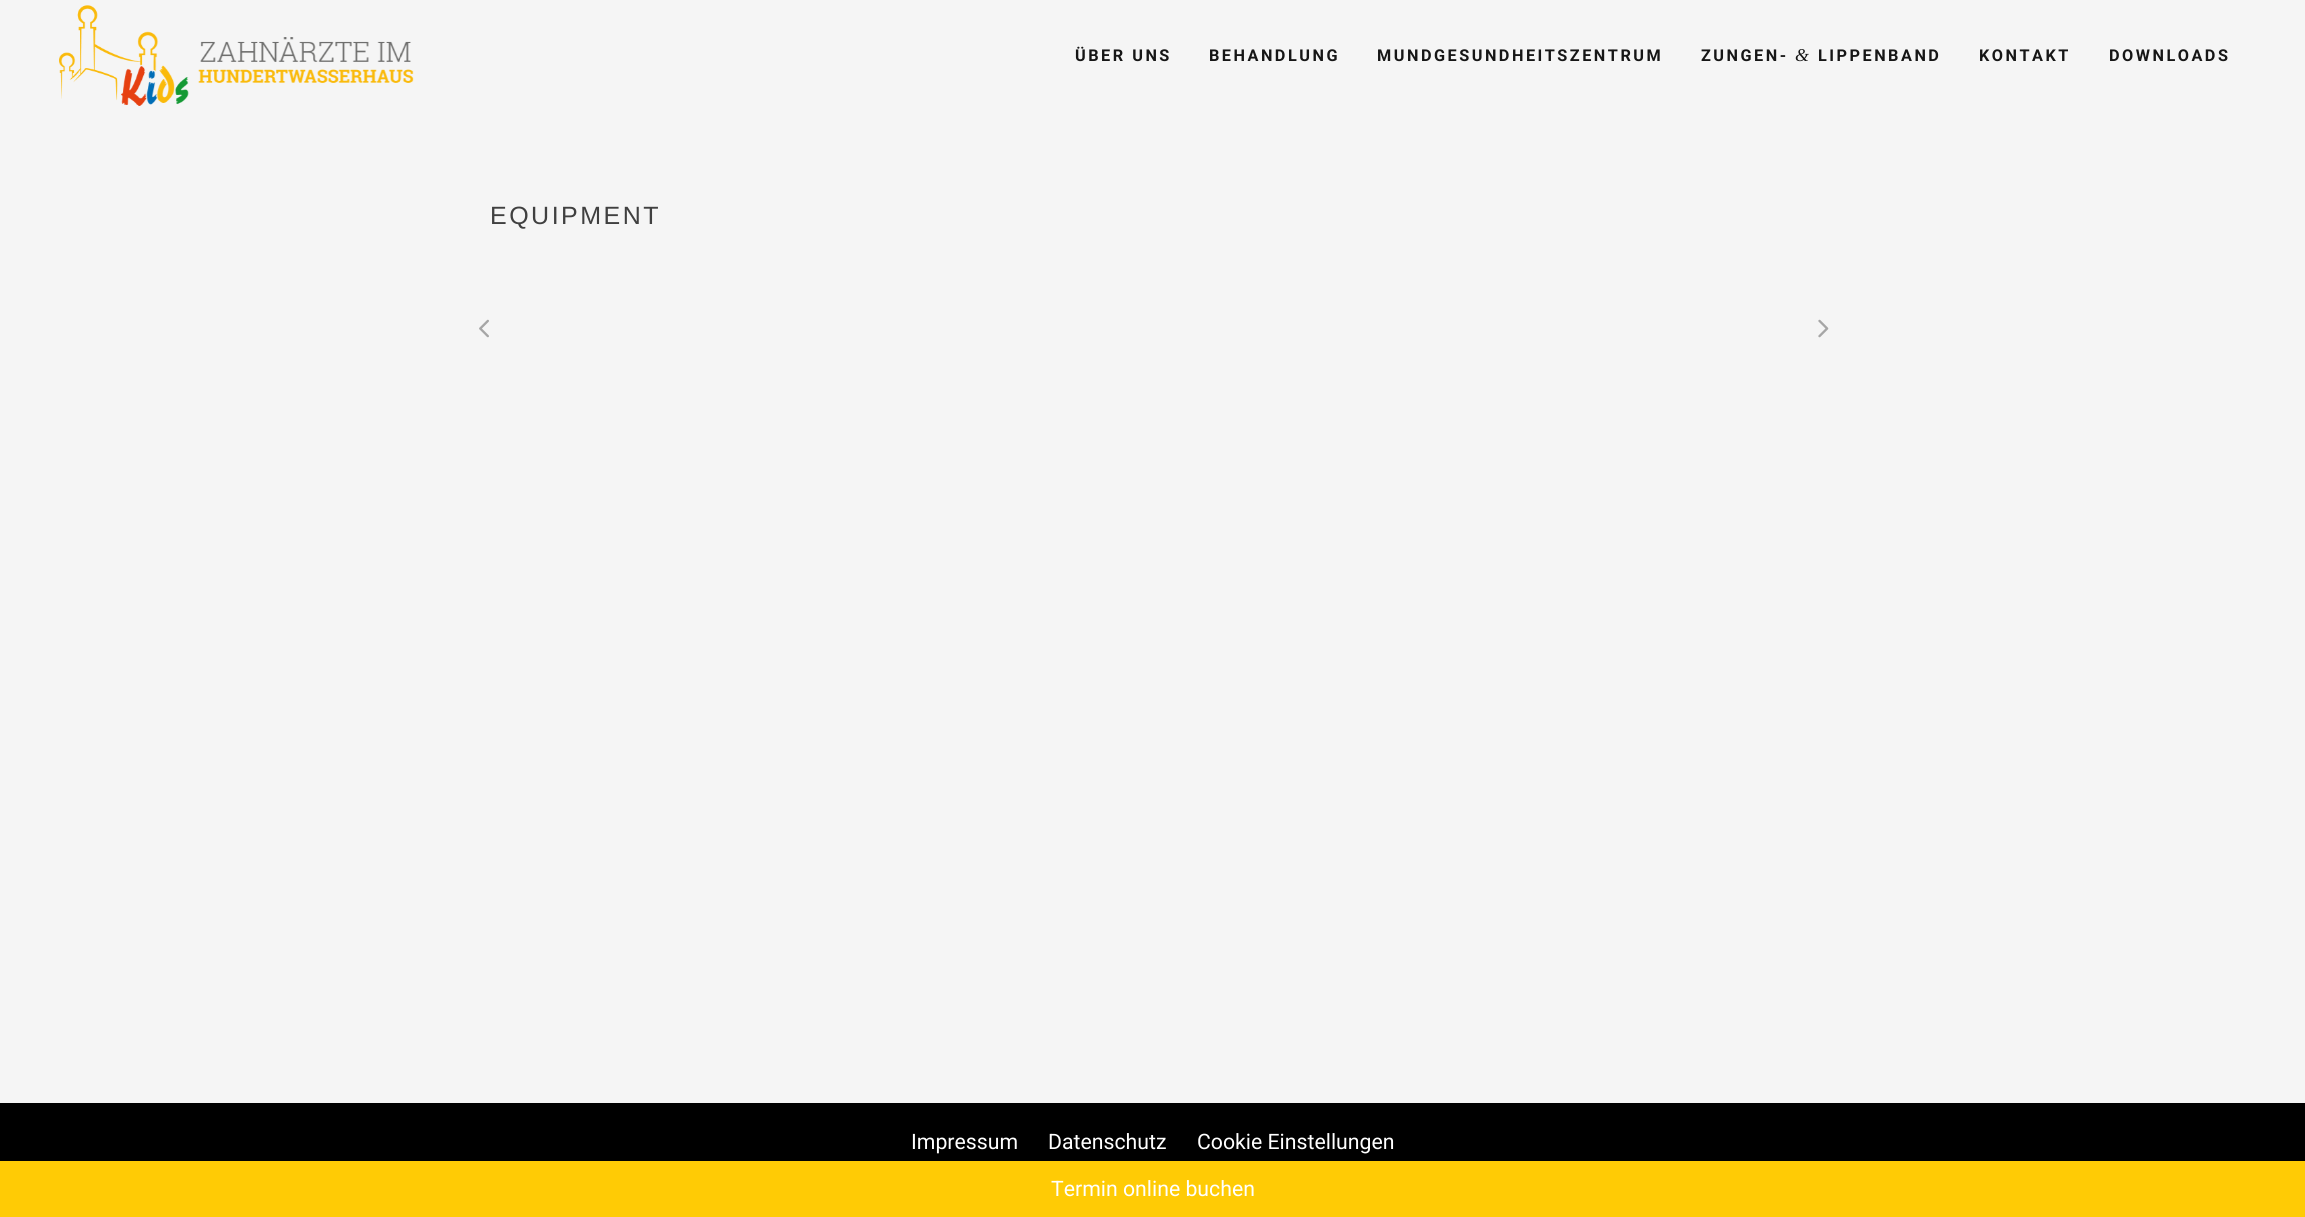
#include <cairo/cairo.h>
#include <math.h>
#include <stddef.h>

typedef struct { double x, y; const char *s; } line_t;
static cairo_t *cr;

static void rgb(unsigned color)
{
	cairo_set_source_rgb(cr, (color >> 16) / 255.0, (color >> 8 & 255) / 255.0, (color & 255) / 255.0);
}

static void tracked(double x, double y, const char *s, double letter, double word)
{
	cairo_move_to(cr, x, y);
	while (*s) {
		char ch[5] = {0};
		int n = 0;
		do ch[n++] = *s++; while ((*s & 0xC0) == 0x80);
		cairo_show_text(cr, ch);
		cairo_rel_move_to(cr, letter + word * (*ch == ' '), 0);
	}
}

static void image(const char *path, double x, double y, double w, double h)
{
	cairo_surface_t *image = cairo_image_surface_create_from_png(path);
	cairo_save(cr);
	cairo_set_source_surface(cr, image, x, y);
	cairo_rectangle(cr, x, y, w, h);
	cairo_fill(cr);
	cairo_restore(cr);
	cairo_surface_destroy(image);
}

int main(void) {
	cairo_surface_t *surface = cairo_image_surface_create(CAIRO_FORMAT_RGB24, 2305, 1217);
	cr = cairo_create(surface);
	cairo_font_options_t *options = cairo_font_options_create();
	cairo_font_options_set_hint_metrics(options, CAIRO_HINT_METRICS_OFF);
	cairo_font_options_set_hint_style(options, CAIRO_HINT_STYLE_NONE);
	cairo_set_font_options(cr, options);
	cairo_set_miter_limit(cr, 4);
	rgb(0xf5f5f5);
	cairo_paint(cr);
	image("img/1.png", 59, 5, 355, 101);
	image("img/2.png", 479, 319, 10, 19);
	image("img/3.png", 1818, 319, 11, 19);
	rgb(0x000000);
	cairo_rectangle(cr, 0, 1103, 2305, 58);
	cairo_fill(cr);
	rgb(0xffcb05);
	cairo_rectangle(cr, 0, 1161, 2305, 56);
	cairo_fill(cr);
	cairo_select_font_face(cr, "Roboto", CAIRO_FONT_SLANT_NORMAL, CAIRO_FONT_WEIGHT_BOLD);
	cairo_set_font_size(cr, 16.25);
	rgb(0x161616);
	{
		static const line_t items[] = {
			{1075, 61, "ÜBER UNS"},
			{1209, 61, "BEHANDLUNG"},
			{1377, 61, "MUNDGESUNDHEITSZENTRUM"},
			{1701, 61, "ZUNGEN-"},
		};
		for (size_t i = 0; i < sizeof items / sizeof *items; i++) {
			tracked(items[i].x, items[i].y, items[i].s, 2.5, 0);
		}
	}
	cairo_select_font_face(cr, "Liberation Serif", CAIRO_FONT_SLANT_ITALIC, CAIRO_FONT_WEIGHT_NORMAL);
	cairo_set_font_size(cr, 18);
	tracked(1795, 61, "&", 2.5, 0);
	cairo_select_font_face(cr, "Roboto", CAIRO_FONT_SLANT_NORMAL, CAIRO_FONT_WEIGHT_BOLD);
	cairo_set_font_size(cr, 16.25);
	{
		static const line_t items[] = {
			{1818, 61, "LIPPENBAND"},
			{1979, 61, "KONTAKT"},
			{2109, 61, "DOWNLOADS"},
		};
		for (size_t i = 0; i < sizeof items / sizeof *items; i++) {
			tracked(items[i].x, items[i].y, items[i].s, 2.5, 0);
		}
	}
	cairo_select_font_face(cr, "Liberation Sans", CAIRO_FONT_SLANT_NORMAL, CAIRO_FONT_WEIGHT_NORMAL);
	cairo_set_font_size(cr, 25);
	rgb(0x404040);
	tracked(490, 224, "EQUIPMENT", 2.5, 0);
	cairo_select_font_face(cr, "Roboto", CAIRO_FONT_SLANT_NORMAL, CAIRO_FONT_WEIGHT_NORMAL);
	cairo_set_font_size(cr, 21.25);
	rgb(0xffffff);
	{
		static const line_t items[] = {
			{911, 1149, "Impressum"},
			{1048, 1149, "Datenschutz"},
			{1197, 1149, "Cookie Einstellungen"},
			{1051, 1196, "Termin online buchen"},
		};
		for (size_t i = 0; i < sizeof items / sizeof *items; i++) {
			cairo_move_to(cr, items[i].x, items[i].y);
			cairo_show_text(cr, items[i].s);
		}
	}
	cairo_surface_write_to_png(surface, "page.png");
	cairo_font_options_destroy(options);
	cairo_destroy(cr);
	cairo_surface_destroy(surface);
	return 0;
}
